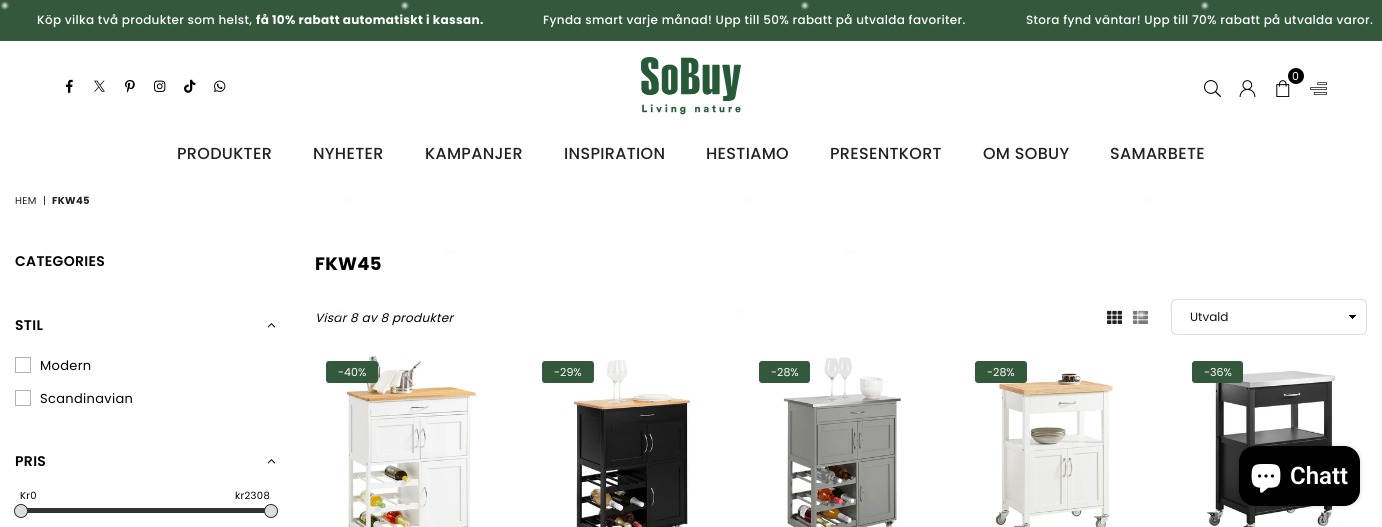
#include <cairo/cairo.h>
#include <math.h>
#include <stddef.h>

typedef struct { double x, y; const char *s; } line_t;
static cairo_t *cr;

static void rgb(unsigned color)
{
	cairo_set_source_rgb(cr, (color >> 16) / 255.0, (color >> 8 & 255) / 255.0, (color & 255) / 255.0);
}

static void tracked(double x, double y, const char *s, double letter, double word)
{
	cairo_move_to(cr, x, y);
	while (*s) {
		char ch[5] = {0};
		int n = 0;
		do ch[n++] = *s++; while ((*s & 0xC0) == 0x80);
		cairo_show_text(cr, ch);
		cairo_rel_move_to(cr, letter + word * (*ch == ' '), 0);
	}
}

static void rrect(double x, double y, double w, double h, double r)
{
	cairo_new_sub_path(cr);
	cairo_arc(cr, x + w - r, y + h - r, r, 0, M_PI / 2);
	cairo_arc(cr, x + r, y + h - r, r, M_PI / 2, M_PI);
	cairo_arc(cr, x + r, y + r, r, M_PI, 1.5 * M_PI);
	cairo_arc(cr, x + w - r, y + r, r, 1.5 * M_PI, 2 * M_PI);
	cairo_close_path(cr);
}

static void soft_shadow(double x, double y, double w, double h, double r, double blur, double alpha)
{
	cairo_push_group_with_content(cr, CAIRO_CONTENT_ALPHA);
	cairo_set_operator(cr, CAIRO_OPERATOR_SOURCE);
	for (int i = 15; i >= -15 && fmin(w, h) + blur * i / 3 > 0; i -= 2) {
		double e = blur * i / 6;
		cairo_set_source_rgba(cr, 0, 0, 0, alpha * erfc((i - 1) / 8.5) / 2);
		rrect(x - e, y - e, w + 2 * e, h + 2 * e, fmax(0, fmin(r + e + blur * .6, fmin(w, h) / 2 + e)));
		cairo_fill(cr);
	}
	cairo_pattern_t *soft = cairo_pop_group(cr);
	cairo_mask(cr, soft);
	cairo_pattern_destroy(soft);
}

static void image(const char *path, double x, double y, double w, double h)
{
	cairo_surface_t *image = cairo_image_surface_create_from_png(path);
	cairo_save(cr);
	cairo_set_source_surface(cr, image, x, y);
	cairo_rectangle(cr, x, y, w, h);
	cairo_fill(cr);
	cairo_restore(cr);
	cairo_surface_destroy(image);
}

int main(void) {
	cairo_surface_t *surface = cairo_image_surface_create(CAIRO_FORMAT_RGB24, 1382, 527);
	cr = cairo_create(surface);
	cairo_font_options_t *options = cairo_font_options_create();
	cairo_font_options_set_hint_metrics(options, CAIRO_HINT_METRICS_OFF);
	cairo_font_options_set_hint_style(options, CAIRO_HINT_STYLE_NONE);
	cairo_set_font_options(cr, options);
	cairo_set_miter_limit(cr, 4);
	rgb(0xffffff);
	cairo_paint(cr);
	rgb(0x33583b);
	cairo_rectangle(cr, 0, 0, 1382, 41);
	cairo_fill(cr);
	image("img/3.png", 1276, 80, 14, 17);
	rgb(0x000000);
	cairo_arc(cr, 1296, 76, 8, 0, 2 * M_PI);
	cairo_fill(cr);
	image("img/5.png", 1239, 80, 17, 17);
	image("img/6.png", 1310, 82, 17, 13);
	image("img/13.png", 267, 323, 9, 5);
	cairo_rectangle(cr, 15.5, 357.5, 15, 15);
	rgb(0xb3b3b3);
	cairo_set_line_width(cr, 1);
	cairo_stroke(cr);
	cairo_rectangle(cr, 15.5, 390.5, 15, 15);
	cairo_stroke(cr);
	image("img/13.png", 267, 459, 9, 5);
	rgb(0x333333);
	cairo_rectangle(cr, 20, 508, 250, 5);
	cairo_fill(cr);
	rgb(0xdddddd);
	cairo_arc(cr, 21, 511, 6.5, 0, 2 * M_PI);
	cairo_fill_preserve(cr);
	rgb(0x333333);
	cairo_stroke(cr);
	rgb(0xdddddd);
	cairo_arc(cr, 271, 511, 6.5, 0, 2 * M_PI);
	cairo_fill_preserve(cr);
	rgb(0x333333);
	cairo_stroke(cr);
	image("img/14.png", 1107, 310, 15, 14);
	image("img/15.png", 1133, 310, 15, 14);
	image("img/16.png", 1349, 315, 7, 4);
	rrect(1171.5, 299.5, 195, 35, 5.5);
	rgb(0xdddddd);
	cairo_stroke(cr);
	image("img/17.png", 346, 355, 131, 172);
	rgb(0x33583b);
	rrect(326, 361, 52, 22, 3);
	cairo_fill(cr);
	image("img/18.png", 573, 360, 118, 167);
	rrect(542, 361, 52, 22, 3);
	cairo_fill(cr);
	image("img/19.png", 783, 357, 118, 170);
	rrect(759, 361, 51, 22, 3);
	cairo_fill(cr);
	image("img/20.png", 995, 373, 118, 154);
	rrect(975, 361, 52, 22, 3);
	cairo_fill(cr);
	image("img/21.png", 1207, 370, 128, 157);
	rrect(1192, 361, 51, 22, 3);
	cairo_fill(cr);
	rgb(0x000000);
	soft_shadow(1239, 446, 121, 60, 16, 2.5, 0.15);
	rgb(0x000000);
	rrect(1239, 446, 121, 60, 16);
	cairo_fill(cr);
	image("img/22.png", 1251, 464, 30, 29);
	cairo_select_font_face(cr, "Poppins Medium", CAIRO_FONT_SLANT_NORMAL, CAIRO_FONT_WEIGHT_NORMAL);
	cairo_set_font_size(cr, 12);
	rgb(0xffffff);
	tracked(37, 24, "Köp vilka två produkter som helst,", 0.32, 0);
	cairo_select_font_face(cr, "Poppins", CAIRO_FONT_SLANT_NORMAL, CAIRO_FONT_WEIGHT_BOLD);
	tracked(256, 24, "få 10% rabatt automatiskt i kassan.", 0.32, 0);
	cairo_select_font_face(cr, "Poppins Medium", CAIRO_FONT_SLANT_NORMAL, CAIRO_FONT_WEIGHT_NORMAL);
	tracked(543, 24, "Fynda smart varje månad! Upp till 50% rabatt på utvalda favoriter.", 0.32, 0);
	tracked(1026, 24, "Stora fynd väntar! Upp till 70% rabatt på utvalda varor.", 0.32, 0);
	cairo_select_font_face(cr, "Poppins", CAIRO_FONT_SLANT_NORMAL, CAIRO_FONT_WEIGHT_NORMAL);
	cairo_set_font_size(cr, 11);
	tracked(1292, 80, "0", 0.32, 0);
	cairo_set_font_size(cr, 10);
	rgb(0x222222);
	tracked(15, 204, "HEM", 0.32, 0);
	tracked(43, 204, "|", 0.32, 0);
	cairo_select_font_face(cr, "Poppins", CAIRO_FONT_SLANT_NORMAL, CAIRO_FONT_WEIGHT_BOLD);
	tracked(52, 204, "FKW45", 0.32, 0);
	cairo_select_font_face(cr, "Poppins SemiBold", CAIRO_FONT_SLANT_NORMAL, CAIRO_FONT_WEIGHT_NORMAL);
	cairo_set_font_size(cr, 14);
	rgb(0x000000);
	tracked(15, 330, "STIL", 0.32, 0);
	cairo_select_font_face(cr, "Poppins", CAIRO_FONT_SLANT_NORMAL, CAIRO_FONT_WEIGHT_NORMAL);
	cairo_set_font_size(cr, 13);
	tracked(40, 370, "Modern", 0.32, 0);
	tracked(40, 403, "Scandinavian", 0.32, 0);
	cairo_select_font_face(cr, "Poppins SemiBold", CAIRO_FONT_SLANT_NORMAL, CAIRO_FONT_WEIGHT_NORMAL);
	cairo_set_font_size(cr, 14);
	tracked(15, 466, "PRIS", 0.32, 0);
	cairo_select_font_face(cr, "Poppins", CAIRO_FONT_SLANT_NORMAL, CAIRO_FONT_WEIGHT_NORMAL);
	cairo_set_font_size(cr, 10);
	tracked(20, 499, "Kr0", 0.32, 0);
	tracked(235, 499, "kr2308", 0.32, 0);
	cairo_select_font_face(cr, "Poppins", CAIRO_FONT_SLANT_NORMAL, CAIRO_FONT_WEIGHT_BOLD);
	cairo_set_font_size(cr, 18);
	tracked(315, 270, "FKW45", 0.32, 0);
	cairo_select_font_face(cr, "Poppins", CAIRO_FONT_SLANT_ITALIC, CAIRO_FONT_WEIGHT_NORMAL);
	cairo_set_font_size(cr, 12);
	tracked(315, 322, "Visar 8 av 8 produkter", 0.32, 0);
	cairo_select_font_face(cr, "Poppins", CAIRO_FONT_SLANT_NORMAL, CAIRO_FONT_WEIGHT_NORMAL);
	rgb(0x111111);
	cairo_move_to(cr, 1190, 321);
	cairo_show_text(cr, "Utvald");
	image("img/1.png", 0, 1, 1209, 319);
	cairo_select_font_face(cr, "Poppins Medium", CAIRO_FONT_SLANT_NORMAL, CAIRO_FONT_WEIGHT_NORMAL);
	cairo_set_font_size(cr, 16);
	rgb(0x222222);
	{
		static const line_t items[] = {
			{1110, 159, "SAMARBETE"},
			{983, 159, "OM SOBUY"},
			{830, 159, "PRESENTKORT"},
			{706, 159, "HESTIAMO"},
			{564, 159, "INSPIRATION"},
			{425, 159, "KAMPANJER"},
			{313, 159, "NYHETER"},
			{177, 159, "PRODUKTER"},
		};
		for (size_t i = 0; i < sizeof items / sizeof *items; i++) {
			tracked(items[i].x, items[i].y, items[i].s, 0.32, 0);
		}
	}
	image("img/4.png", 1204, 80, 17, 17);
	image("img/2.png", 641, 57, 100, 58);
	image("img/12.png", 214, 80, 12, 12);
	image("img/11.png", 184, 79, 12, 14);
	image("img/10.png", 154, 80, 12, 12);
	image("img/9.png", 125, 80, 10, 13);
	image("img/8.png", 94, 80, 11, 12);
	image("img/7.png", 66, 79, 7, 14);
	cairo_select_font_face(cr, "Poppins SemiBold", CAIRO_FONT_SLANT_NORMAL, CAIRO_FONT_WEIGHT_NORMAL);
	cairo_set_font_size(cr, 14);
	rgb(0x000000);
	tracked(15, 266, "CATEGORIES", 0.32, 0);
	cairo_select_font_face(cr, "Poppins", CAIRO_FONT_SLANT_NORMAL, CAIRO_FONT_WEIGHT_NORMAL);
	cairo_set_font_size(cr, 11);
	rgb(0xffffff);
	{
		static const line_t items[] = {
			{338, 376, "-40%"},
			{554, 376, "-29%"},
			{771, 376, "-28%"},
			{987, 376, "-28%"},
			{1204, 376, "-36%"},
		};
		for (size_t i = 0; i < sizeof items / sizeof *items; i++) {
			cairo_move_to(cr, items[i].x, items[i].y);
			cairo_show_text(cr, items[i].s);
		}
	}
	cairo_select_font_face(cr, "Roboto SemiBold", CAIRO_FONT_SLANT_NORMAL, CAIRO_FONT_WEIGHT_NORMAL);
	cairo_set_font_size(cr, 24);
	cairo_move_to(cr, 1290, 484);
	cairo_show_text(cr, "Chatt");
	cairo_surface_write_to_png(surface, "page.png");
	cairo_font_options_destroy(options);
	cairo_destroy(cr);
	cairo_surface_destroy(surface);
	return 0;
}
